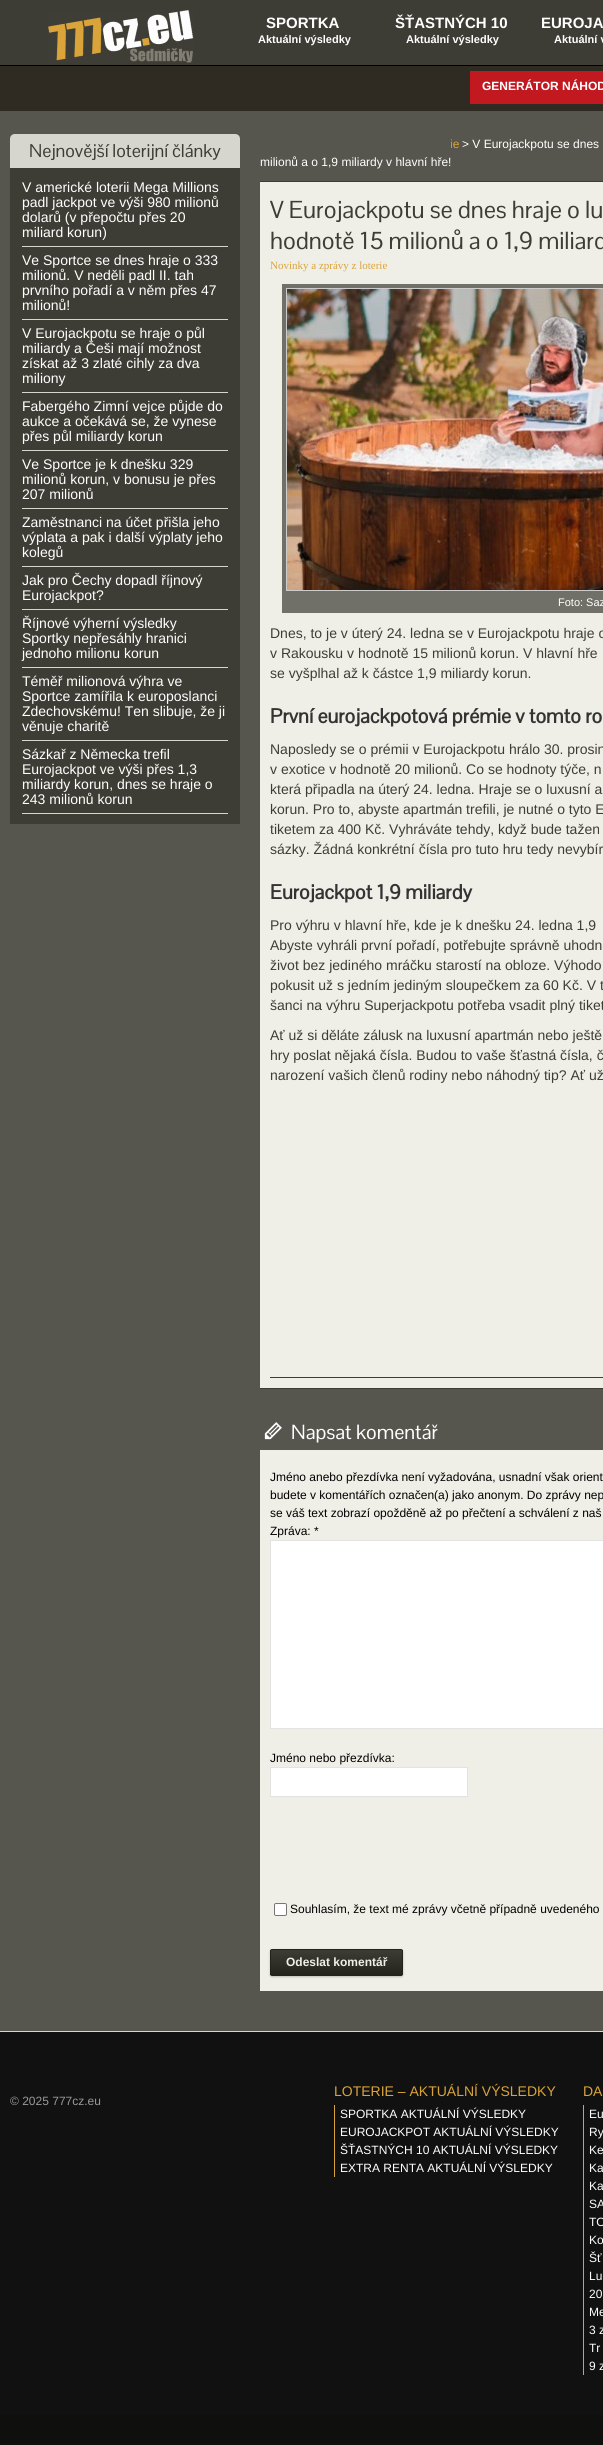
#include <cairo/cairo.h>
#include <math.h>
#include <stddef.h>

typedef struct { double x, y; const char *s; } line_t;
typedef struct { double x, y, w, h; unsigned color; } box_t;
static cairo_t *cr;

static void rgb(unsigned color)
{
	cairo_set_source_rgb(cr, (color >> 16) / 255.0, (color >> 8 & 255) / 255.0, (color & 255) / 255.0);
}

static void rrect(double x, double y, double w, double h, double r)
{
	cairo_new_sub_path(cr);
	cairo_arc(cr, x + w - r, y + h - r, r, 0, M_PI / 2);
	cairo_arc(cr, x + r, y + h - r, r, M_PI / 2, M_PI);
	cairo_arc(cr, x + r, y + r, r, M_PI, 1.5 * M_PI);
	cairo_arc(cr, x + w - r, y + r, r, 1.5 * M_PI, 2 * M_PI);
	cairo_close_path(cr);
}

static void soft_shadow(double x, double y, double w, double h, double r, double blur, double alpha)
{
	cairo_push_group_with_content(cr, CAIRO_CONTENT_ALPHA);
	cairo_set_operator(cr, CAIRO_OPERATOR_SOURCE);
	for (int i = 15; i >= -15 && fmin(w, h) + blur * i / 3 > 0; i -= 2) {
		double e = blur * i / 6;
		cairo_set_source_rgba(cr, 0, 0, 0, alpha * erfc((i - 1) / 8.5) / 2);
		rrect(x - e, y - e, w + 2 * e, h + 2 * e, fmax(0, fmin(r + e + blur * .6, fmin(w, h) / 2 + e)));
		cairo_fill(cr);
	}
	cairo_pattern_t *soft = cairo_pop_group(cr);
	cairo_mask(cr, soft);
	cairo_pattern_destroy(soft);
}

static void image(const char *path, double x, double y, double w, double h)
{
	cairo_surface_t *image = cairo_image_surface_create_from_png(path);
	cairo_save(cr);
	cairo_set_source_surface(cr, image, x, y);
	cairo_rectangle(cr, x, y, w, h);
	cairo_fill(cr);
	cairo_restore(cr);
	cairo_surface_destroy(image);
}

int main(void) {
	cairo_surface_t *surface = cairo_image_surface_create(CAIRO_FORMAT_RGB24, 603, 2445);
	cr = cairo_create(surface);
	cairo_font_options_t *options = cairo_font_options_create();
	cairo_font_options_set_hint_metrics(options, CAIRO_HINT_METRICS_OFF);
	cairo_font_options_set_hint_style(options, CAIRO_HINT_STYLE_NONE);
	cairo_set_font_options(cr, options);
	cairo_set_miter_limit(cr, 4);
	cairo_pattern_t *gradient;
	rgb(0x181816);
	cairo_paint(cr);
	image("img/1.png", 0, 2415, 603, 30);
	rgb(0x3e3d35);
	cairo_rectangle(cr, 0, 0, 603, 65);
	cairo_fill(cr);
	rgb(0x000000);
	cairo_rectangle(cr, 0, 65, 603, 1);
	cairo_fill(cr);
	image("img/2.png", 48, 10, 146, 53);
	{
		static const box_t items[] = {
			{0, 66, 603, 45, 0x2f2b22},
			{470, 71, 133, 33, 0xc21921},
			{0, 111, 603, 1920, 0x57564e},
			{10, 169, 230, 655, 0x3e3d35},
		};
		for (size_t i = 0; i < sizeof items / sizeof *items; i++) {
			rgb(items[i].color);
			cairo_rectangle(cr, items[i].x, items[i].y, items[i].w, items[i].h);
			cairo_fill(cr);
		}
	}
	rgb(0xd7d6ce);
	cairo_new_path(cr);
	cairo_move_to(cr, 15, 134);
	cairo_line_to(cr, 235, 134);
	cairo_curve_to(cr, 238, 134, 240, 136, 240, 139);
	cairo_line_to(cr, 240, 169);
	cairo_line_to(cr, 10, 169);
	cairo_line_to(cr, 10, 139);
	cairo_curve_to(cr, 10, 136, 12, 134, 15, 134);
	cairo_close_path(cr);
	cairo_fill(cr);
	{
		static const box_t items[] = {
			{10, 168, 230, 1, 0x3e3d35},
			{22, 246, 206, 1, 0xd7d6ce},
			{22, 319, 206, 1, 0xd7d6ce},
			{22, 392, 206, 1, 0xd7d6ce},
			{22, 450, 206, 1, 0xd7d6ce},
			{22, 508, 206, 1, 0xd7d6ce},
			{22, 566, 206, 1, 0xd7d6ce},
			{22, 609, 206, 1, 0xd7d6ce},
			{22, 667, 206, 1, 0xd7d6ce},
			{22, 740, 206, 1, 0xd7d6ce},
			{22, 813, 206, 1, 0xd7d6ce},
			{260, 182, 343, 1206, 0xf0efe7},
			{260, 181, 343, 1, 0x3e3d35},
			{260, 1388, 343, 1, 0x3e3d35},
			{282, 284, 321, 329, 0x717068},
		};
		for (size_t i = 0; i < sizeof items / sizeof *items; i++) {
			rgb(items[i].color);
			cairo_rectangle(cr, items[i].x, items[i].y, items[i].w, items[i].h);
			cairo_fill(cr);
		}
	}
	cairo_rectangle(cr, 286.5, 288.5, 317, 302);
	rgb(0xcccccc);
	cairo_set_line_width(cr, 1);
	cairo_stroke(cr);
	image("img/3.png", 287, 289, 316, 301);
	rgb(0x3e3d35);
	cairo_rectangle(cr, 270, 1377, 333, 1);
	cairo_fill(cr);
	image("img/4.png", 264, 1422, 18, 18);
	rgb(0xf0efe7);
	cairo_rectangle(cr, 260, 1450, 343, 541);
	cairo_fill(cr);
	rgb(0xffffff);
	cairo_rectangle(cr, 270.5, 1540.5, 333, 188);
	cairo_fill_preserve(cr);
	rgb(0xe3e3e3);
	cairo_stroke(cr);
	rgb(0xffffff);
	cairo_rectangle(cr, 270.5, 1767.5, 197, 29);
	cairo_fill_preserve(cr);
	rgb(0xe3e3e3);
	cairo_stroke(cr);
	rgb(0xffffff);
	rrect(274.5, 1903.5, 12, 12, 1.5);
	cairo_fill_preserve(cr);
	rgb(0x767676);
	cairo_stroke(cr);
	rgb(0xbdbcb4);
	soft_shadow(270, 1950, 133, 27, 2, 1, 1);
	cairo_save(cr);
	rrect(270, 1949, 133, 27, 2);
	cairo_clip(cr);
	gradient = cairo_pattern_create_linear(337, 1950, 337, 1975);
	cairo_pattern_add_color_stop_rgba(gradient, 0, 0.243, 0.239, 0.208, 1);
	cairo_pattern_add_color_stop_rgba(gradient, 1, 0.141, 0.137, 0.106, 1);
	cairo_set_source(cr, gradient);
	cairo_pattern_destroy(gradient);
	cairo_rectangle(cr, 270, 1950, 133, 25);
	cairo_fill(cr);
	cairo_restore(cr);
	rrect(270.5, 1949.5, 132, 26, 1.5);
	rgb(0x24231b);
	cairo_stroke(cr);
	{
		static const box_t items[] = {
			{0, 2032, 603, 383, 0x111111},
			{0, 2031, 603, 1, 0xd5d5d5},
			{334, 2105, 1, 72, 0xd8a33b},
			{583, 2105, 1, 270, 0xd8a33b},
		};
		for (size_t i = 0; i < sizeof items / sizeof *items; i++) {
			rgb(items[i].color);
			cairo_rectangle(cr, items[i].x, items[i].y, items[i].w, items[i].h);
			cairo_fill(cr);
		}
	}
	cairo_select_font_face(cr, "Liberation Sans", CAIRO_FONT_SLANT_NORMAL, CAIRO_FONT_WEIGHT_BOLD);
	cairo_set_font_size(cr, 15);
	rgb(0xffffff);
	cairo_move_to(cr, 266, 28);
	cairo_show_text(cr, "SPORTKA");
	cairo_set_font_size(cr, 11);
	cairo_move_to(cr, 258, 43);
	cairo_show_text(cr, "Aktuální výsledky");
	cairo_set_font_size(cr, 15);
	cairo_move_to(cr, 395, 28);
	cairo_show_text(cr, "ŠŤASTNÝCH 10");
	cairo_set_font_size(cr, 11);
	cairo_move_to(cr, 406, 43);
	cairo_show_text(cr, "Aktuální výsledky");
	cairo_set_font_size(cr, 15);
	cairo_move_to(cr, 541, 28);
	cairo_show_text(cr, "EUROJA");
	cairo_set_font_size(cr, 11);
	cairo_move_to(cr, 554, 43);
	cairo_show_text(cr, "Aktuální v");
	cairo_set_font_size(cr, 12);
	cairo_move_to(cr, 482, 90);
	cairo_show_text(cr, "GENERÁTOR NÁHOD");
	cairo_select_font_face(cr, "Pontano Sans", CAIRO_FONT_SLANT_NORMAL, CAIRO_FONT_WEIGHT_NORMAL);
	cairo_set_font_size(cr, 18);
	rgb(0x3e3d35);
	cairo_move_to(cr, 29, 157);
	cairo_show_text(cr, "Nejnovější loterijní články");
	cairo_select_font_face(cr, "Liberation Sans", CAIRO_FONT_SLANT_NORMAL, CAIRO_FONT_WEIGHT_NORMAL);
	cairo_set_font_size(cr, 14);
	rgb(0xffffff);
	{
		static const line_t items[] = {
			{22, 192, "V americké loterii Mega Millions"},
			{22, 207, "padl jackpot ve výši 980 milionů"},
			{22, 222, "dolarů (v přepočtu přes 20"},
			{22, 237, "miliard korun)"},
			{22, 265, "Ve Sportce se dnes hraje o 333"},
			{22, 280, "milionů. V neděli padl II. tah"},
			{22, 295, "prvního pořadí a v něm přes 47"},
			{22, 310, "milionů!"},
			{22, 338, "V Eurojackpotu se hraje o půl"},
			{22, 353, "miliardy a Češi mají možnost"},
			{22, 368, "získat až 3 zlaté cihly za dva"},
			{22, 383, "miliony"},
			{22, 411, "Fabergého Zimní vejce půjde do"},
			{22, 426, "aukce a očekává se, že vynese"},
			{22, 441, "přes půl miliardy korun"},
			{22, 469, "Ve Sportce je k dnešku 329"},
			{22, 484, "milionů korun, v bonusu je přes"},
			{22, 499, "207 milionů"},
			{22, 527, "Zaměstnanci na účet přišla jeho"},
			{22, 542, "výplata a pak i další výplaty jeho"},
			{22, 557, "kolegů"},
			{22, 585, "Jak pro Čechy dopadl říjnový"},
			{22, 600, "Eurojackpot?"},
			{22, 628, "Říjnové výherní výsledky"},
			{22, 643, "Sportky nepřesáhly hranici"},
			{22, 658, "jednoho milionu korun"},
			{22, 686, "Téměř milionová výhra ve"},
			{22, 701, "Sportce zamířila k europoslanci"},
			{22, 716, "Zdechovskému! Ten slibuje, že ji"},
			{22, 731, "věnuje charitě"},
			{22, 759, "Sázkař z Německa trefil"},
			{22, 774, "Eurojackpot ve výši přes 1,3"},
			{22, 789, "miliardy korun, dnes se hraje o"},
			{22, 804, "243 milionů korun"},
		};
		for (size_t i = 0; i < sizeof items / sizeof *items; i++) {
			cairo_move_to(cr, items[i].x, items[i].y);
			cairo_show_text(cr, items[i].s);
		}
	}
	cairo_set_font_size(cr, 12);
	rgb(0xd8a33b);
	cairo_move_to(cr, 450, 148);
	cairo_show_text(cr, "ie");
	rgb(0xffffff);
	cairo_move_to(cr, 462, 148);
	cairo_show_text(cr, "> V Eurojackpotu se dnes");
	cairo_move_to(cr, 260, 166);
	cairo_show_text(cr, "milionů a o 1,9 miliardy v hlavní hře!");
	rgb(0x57564e);
	cairo_rectangle(cr, 450, 139, 1, 9);
	cairo_fill(cr);
	cairo_select_font_face(cr, "Pontano Sans", CAIRO_FONT_SLANT_NORMAL, CAIRO_FONT_WEIGHT_NORMAL);
	cairo_set_font_size(cr, 24);
	rgb(0x3e3d35);
	cairo_move_to(cr, 270, 218);
	cairo_show_text(cr, "V Eurojackpotu se dnes hraje o lu");
	cairo_move_to(cr, 270, 249);
	cairo_show_text(cr, "hodnotě 15 milionů a o 1,9 miliard");
	cairo_select_font_face(cr, "Liberation Serif", CAIRO_FONT_SLANT_NORMAL, CAIRO_FONT_WEIGHT_NORMAL);
	cairo_set_font_size(cr, 11);
	rgb(0xd8a33b);
	cairo_move_to(cr, 270, 269);
	cairo_show_text(cr, "Novinky a zprávy z loterie");
	cairo_select_font_face(cr, "Liberation Sans", CAIRO_FONT_SLANT_NORMAL, CAIRO_FONT_WEIGHT_NORMAL);
	rgb(0xffffff);
	cairo_move_to(cr, 558, 606);
	cairo_show_text(cr, "Foto: Saz");
	cairo_set_font_size(cr, 14);
	rgb(0x3e3d35);
	{
		static const line_t items[] = {
			{270, 638, "Dnes, to je v úterý 24. ledna se v Eurojackpotu hraje o"},
			{270, 658, "v Rakousku v hodnotě 15 milionů korun. V hlavní hře"},
			{270, 678, "se vyšplhal až k částce 1,9 miliardy korun."},
		};
		for (size_t i = 0; i < sizeof items / sizeof *items; i++) {
			cairo_move_to(cr, items[i].x, items[i].y);
			cairo_show_text(cr, items[i].s);
		}
	}
	cairo_select_font_face(cr, "Pontano Sans", CAIRO_FONT_SLANT_NORMAL, CAIRO_FONT_WEIGHT_BOLD);
	cairo_set_font_size(cr, 20);
	rgb(0x333333);
	cairo_move_to(cr, 270, 723);
	cairo_show_text(cr, "První eurojackpotová prémie v tomto ro");
	cairo_select_font_face(cr, "Liberation Sans", CAIRO_FONT_SLANT_NORMAL, CAIRO_FONT_WEIGHT_NORMAL);
	cairo_set_font_size(cr, 14);
	rgb(0x3e3d35);
	{
		static const line_t items[] = {
			{270, 754, "Naposledy se o prémii v Eurojackpotu hrálo 30. prosin"},
			{270, 774, "v exotice v hodnotě 20 milionů. Co se hodnoty týče, n"},
			{270, 794, "která připadla na úterý 24. ledna. Hraje se o luxusní a"},
			{270, 814, "korun. Pro to, abyste apartmán trefili, je nutné o tyto E"},
			{270, 834, "tiketem za 400 Kč. Vyhráváte tehdy, když bude tažen"},
			{270, 854, "sázky. Žádná konkrétní čísla pro tuto hru tedy nevybír"},
		};
		for (size_t i = 0; i < sizeof items / sizeof *items; i++) {
			cairo_move_to(cr, items[i].x, items[i].y);
			cairo_show_text(cr, items[i].s);
		}
	}
	cairo_select_font_face(cr, "Pontano Sans", CAIRO_FONT_SLANT_NORMAL, CAIRO_FONT_WEIGHT_BOLD);
	cairo_set_font_size(cr, 20);
	rgb(0x333333);
	cairo_move_to(cr, 270, 899);
	cairo_show_text(cr, "Eurojackpot 1,9 miliardy");
	cairo_select_font_face(cr, "Liberation Sans", CAIRO_FONT_SLANT_NORMAL, CAIRO_FONT_WEIGHT_NORMAL);
	cairo_set_font_size(cr, 14);
	rgb(0x3e3d35);
	{
		static const line_t items[] = {
			{270, 930, "Pro výhru v hlavní hře, kde je k dnešku 24. ledna 1,9"},
			{270, 950, "Abyste vyhráli první pořadí, potřebujte správně uhodn"},
			{270, 970, "život bez jediného mráčku starostí na obloze. Výhodo"},
			{270, 990, "pokusit už s jedním jediným sloupečkem za 60 Kč. V t"},
			{270, 1010, "šanci na výhru Superjackpotu potřeba vsadit plný tiket"},
			{270, 1040, "Ať už si děláte zálusk na luxusní apartmán nebo ještě"},
			{270, 1060, "hry poslat nějaká čísla. Budou to vaše šťastná čísla, č"},
			{270, 1080, "narození vašich členů rodiny nebo náhodný tip? Ať už"},
		};
		for (size_t i = 0; i < sizeof items / sizeof *items; i++) {
			cairo_move_to(cr, items[i].x, items[i].y);
			cairo_show_text(cr, items[i].s);
		}
	}
	cairo_select_font_face(cr, "Pontano Sans", CAIRO_FONT_SLANT_NORMAL, CAIRO_FONT_WEIGHT_NORMAL);
	cairo_set_font_size(cr, 20);
	rgb(0xffffff);
	cairo_move_to(cr, 291, 1439);
	cairo_show_text(cr, "Napsat komentář");
	cairo_select_font_face(cr, "Liberation Sans", CAIRO_FONT_SLANT_NORMAL, CAIRO_FONT_WEIGHT_NORMAL);
	cairo_set_font_size(cr, 12);
	rgb(0x000000);
	{
		static const line_t items[] = {
			{270, 1481, "Jméno anebo přezdívka není vyžadována, usnadní však orient"},
			{270, 1499, "budete v komentářích označen(a) jako anonym. Do zprávy nep"},
			{270, 1517, "se váš text zobrazí opožděně až po přečtení a schválení z naš"},
			{270, 1535, "Zpráva: *"},
			{270, 1762, "Jméno nebo přezdívka:"},
			{290, 1913, "Souhlasím, že text mé zprávy včetně případně uvedeného"},
		};
		for (size_t i = 0; i < sizeof items / sizeof *items; i++) {
			cairo_move_to(cr, items[i].x, items[i].y);
			cairo_show_text(cr, items[i].s);
		}
	}
	cairo_select_font_face(cr, "Liberation Sans", CAIRO_FONT_SLANT_NORMAL, CAIRO_FONT_WEIGHT_BOLD);
	rgb(0xf0efe7);
	cairo_move_to(cr, 286, 1966);
	cairo_show_text(cr, "Odeslat komentář");
	cairo_select_font_face(cr, "Liberation Sans", CAIRO_FONT_SLANT_NORMAL, CAIRO_FONT_WEIGHT_NORMAL);
	rgb(0x999999);
	cairo_move_to(cr, 10, 2105);
	cairo_show_text(cr, "© 2025 777cz.eu");
	cairo_set_font_size(cr, 14);
	rgb(0xd8a33b);
	cairo_move_to(cr, 334, 2096);
	cairo_show_text(cr, "LOTERIE – AKTUÁLNÍ VÝSLEDKY");
	cairo_set_font_size(cr, 12);
	rgb(0xffffff);
	{
		static const line_t items[] = {
			{340, 2118, "SPORTKA AKTUÁLNÍ VÝSLEDKY"},
			{340, 2136, "EUROJACKPOT AKTUÁLNÍ VÝSLEDKY"},
			{340, 2154, "ŠŤASTNÝCH 10 AKTUÁLNÍ VÝSLEDKY"},
			{340, 2172, "EXTRA RENTA AKTUÁLNÍ VÝSLEDKY"},
		};
		for (size_t i = 0; i < sizeof items / sizeof *items; i++) {
			cairo_move_to(cr, items[i].x, items[i].y);
			cairo_show_text(cr, items[i].s);
		}
	}
	cairo_set_font_size(cr, 14);
	rgb(0xd8a33b);
	cairo_move_to(cr, 583, 2096);
	cairo_show_text(cr, "DA");
	cairo_set_font_size(cr, 12);
	rgb(0xffffff);
	{
		static const line_t items[] = {
			{589, 2118, "Eu"},
			{589, 2136, "Ry"},
			{589, 2154, "Ke"},
			{589, 2172, "Ka"},
			{589, 2190, "Ka"},
			{589, 2208, "SA"},
			{589, 2226, "TO"},
			{589, 2244, "Ko"},
			{589, 2262, "Šť"},
			{589, 2280, "Lu"},
			{589, 2298, "20"},
			{589, 2316, "Me"},
			{589, 2334, "3 z"},
			{589, 2352, "Tr"},
			{589, 2370, "9 z"},
		};
		for (size_t i = 0; i < sizeof items / sizeof *items; i++) {
			cairo_move_to(cr, items[i].x, items[i].y);
			cairo_show_text(cr, items[i].s);
		}
	}
	cairo_surface_write_to_png(surface, "page.png");
	cairo_font_options_destroy(options);
	cairo_destroy(cr);
	cairo_surface_destroy(surface);
	return 0;
}
